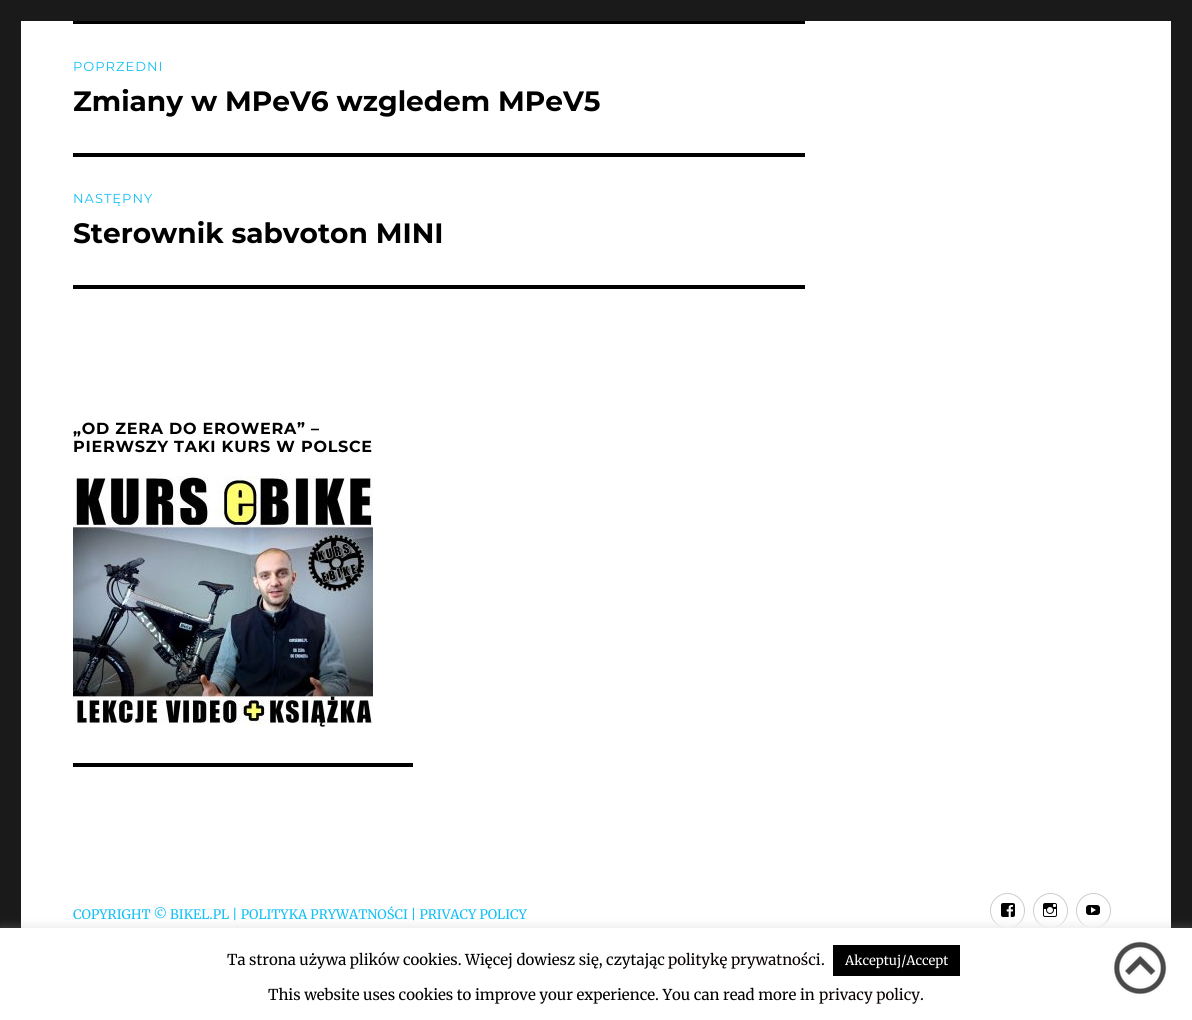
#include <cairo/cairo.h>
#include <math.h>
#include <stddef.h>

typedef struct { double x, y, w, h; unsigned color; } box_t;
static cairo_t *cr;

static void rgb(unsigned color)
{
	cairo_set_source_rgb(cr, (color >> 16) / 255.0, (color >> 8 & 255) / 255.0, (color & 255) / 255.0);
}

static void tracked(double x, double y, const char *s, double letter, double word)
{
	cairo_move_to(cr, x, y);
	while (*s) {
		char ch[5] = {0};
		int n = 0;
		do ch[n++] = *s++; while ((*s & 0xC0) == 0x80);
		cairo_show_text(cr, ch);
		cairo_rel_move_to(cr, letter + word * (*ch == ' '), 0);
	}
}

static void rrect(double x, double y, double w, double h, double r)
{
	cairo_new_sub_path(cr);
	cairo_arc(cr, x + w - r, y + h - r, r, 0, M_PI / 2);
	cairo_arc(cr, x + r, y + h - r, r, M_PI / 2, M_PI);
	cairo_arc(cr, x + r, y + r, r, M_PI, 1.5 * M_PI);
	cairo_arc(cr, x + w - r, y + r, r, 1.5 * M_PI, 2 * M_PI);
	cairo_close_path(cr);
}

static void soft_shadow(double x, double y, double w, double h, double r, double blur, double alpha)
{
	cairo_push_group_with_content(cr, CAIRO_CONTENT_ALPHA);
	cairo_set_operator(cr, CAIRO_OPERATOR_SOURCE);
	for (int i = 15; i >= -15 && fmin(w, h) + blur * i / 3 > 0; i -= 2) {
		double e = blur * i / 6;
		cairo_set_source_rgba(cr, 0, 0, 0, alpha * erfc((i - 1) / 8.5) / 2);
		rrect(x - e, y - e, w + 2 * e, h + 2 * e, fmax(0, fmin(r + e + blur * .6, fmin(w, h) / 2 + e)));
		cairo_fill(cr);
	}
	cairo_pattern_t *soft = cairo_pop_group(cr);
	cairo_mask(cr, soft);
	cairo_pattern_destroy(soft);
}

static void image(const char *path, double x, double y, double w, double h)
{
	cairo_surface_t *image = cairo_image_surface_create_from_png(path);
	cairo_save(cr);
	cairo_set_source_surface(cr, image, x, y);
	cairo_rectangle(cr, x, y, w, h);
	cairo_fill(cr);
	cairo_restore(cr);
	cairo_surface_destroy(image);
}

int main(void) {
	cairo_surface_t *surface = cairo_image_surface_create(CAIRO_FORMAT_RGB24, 1192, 1020);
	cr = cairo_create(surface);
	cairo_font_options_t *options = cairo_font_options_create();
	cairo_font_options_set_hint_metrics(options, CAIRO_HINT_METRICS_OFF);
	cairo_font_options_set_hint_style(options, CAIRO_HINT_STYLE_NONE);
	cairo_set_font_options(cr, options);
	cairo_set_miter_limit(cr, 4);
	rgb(0x1a1a1a);
	cairo_paint(cr);
	{
		static const box_t items[] = {
			{21, 21, 1150, 907, 0xffffff},
			{73, 21, 732, 3, 0x000000},
			{73, 285, 732, 4, 0x000000},
			{73, 153, 732, 4, 0x000000},
			{73, 763, 340, 4, 0x000000},
		};
		for (size_t i = 0; i < sizeof items / sizeof *items; i++) {
			rgb(items[i].color);
			cairo_rectangle(cr, items[i].x, items[i].y, items[i].w, items[i].h);
			cairo_fill(cr);
		}
	}
	image("img/1.png", 73, 476, 300, 251);
	rgb(0xcccccc);
	cairo_set_fill_rule(cr, CAIRO_FILL_RULE_EVEN_ODD);
	cairo_new_path(cr);
	cairo_move_to(cr, 1007.5, 893);
	cairo_curve_to(cr, 1017, 893, 1025, 901, 1025, 910.5);
	cairo_curve_to(cr, 1025, 920, 1017, 928, 1007.5, 928);
	cairo_curve_to(cr, 998, 928, 990, 920, 990, 910.5);
	cairo_curve_to(cr, 990, 901, 998, 893, 1007.5, 893);
	cairo_close_path(cr);
	cairo_move_to(cr, 1007.5, 894);
	cairo_curve_to(cr, 1016.5, 894, 1024, 901.5, 1024, 910.5);
	cairo_curve_to(cr, 1024, 920, 1016.5, 928, 1007.5, 928);
	cairo_curve_to(cr, 998.5, 928, 991, 920, 991, 910.5);
	cairo_curve_to(cr, 991, 901.5, 998.5, 894, 1007.5, 894);
	cairo_close_path(cr);
	cairo_fill(cr);
	image("img/2.png", 1001, 903, 14, 14);
	cairo_new_path(cr);
	cairo_move_to(cr, 1050.5, 893);
	cairo_curve_to(cr, 1060, 893, 1068, 901, 1068, 910.5);
	cairo_curve_to(cr, 1068, 920, 1060, 928, 1050.5, 928);
	cairo_curve_to(cr, 1041, 928, 1033, 920, 1033, 910.5);
	cairo_curve_to(cr, 1033, 901, 1041, 893, 1050.5, 893);
	cairo_close_path(cr);
	cairo_move_to(cr, 1050.5, 894);
	cairo_curve_to(cr, 1059.5, 894, 1067, 901.5, 1067, 910.5);
	cairo_curve_to(cr, 1067, 920, 1059.5, 928, 1050.5, 928);
	cairo_curve_to(cr, 1041.5, 928, 1034, 920, 1034, 910.5);
	cairo_curve_to(cr, 1034, 901.5, 1041.5, 894, 1050.5, 894);
	cairo_close_path(cr);
	cairo_fill(cr);
	image("img/3.png", 1043, 903, 14, 14);
	cairo_new_path(cr);
	cairo_move_to(cr, 1093.5, 893);
	cairo_curve_to(cr, 1103, 893, 1111, 901, 1111, 910.5);
	cairo_curve_to(cr, 1111, 920, 1103, 928, 1093.5, 928);
	cairo_curve_to(cr, 1084, 928, 1076, 920, 1076, 910.5);
	cairo_curve_to(cr, 1076, 901, 1084, 893, 1093.5, 893);
	cairo_close_path(cr);
	cairo_move_to(cr, 1093.5, 894);
	cairo_curve_to(cr, 1102.5, 894, 1110, 901.5, 1110, 910.5);
	cairo_curve_to(cr, 1110, 920, 1102.5, 928, 1093.5, 928);
	cairo_curve_to(cr, 1084.5, 928, 1077, 920, 1077, 910.5);
	cairo_curve_to(cr, 1077, 901.5, 1084.5, 894, 1093.5, 894);
	cairo_close_path(cr);
	cairo_fill(cr);
	image("img/4.png", 1086, 905, 14, 10);
	rgb(0xacabab);
	soft_shadow(0, 927, 1192, 92, 0, 5, 0.3);
	rgb(0xffffff);
	cairo_rectangle(cr, 0, 928, 1192, 92);
	cairo_fill(cr);
	rgb(0x000000);
	cairo_rectangle(cr, 833, 945, 127, 31);
	cairo_fill(cr);
	image("img/5.png", 1112, 940, 56, 56);
	cairo_select_font_face(cr, "Montserrat", CAIRO_FONT_SLANT_NORMAL, CAIRO_FONT_WEIGHT_NORMAL);
	cairo_set_font_size(cr, 13);
	rgb(0x12c0f6);
	tracked(73, 71, "POPRZEDNI", 1, 0);
	cairo_select_font_face(cr, "Montserrat", CAIRO_FONT_SLANT_NORMAL, CAIRO_FONT_WEIGHT_BOLD);
	cairo_set_font_size(cr, 28);
	rgb(0x000000);
	cairo_move_to(cr, 73, 111);
	cairo_show_text(cr, "Zmiany w MPeV6 wzgledem MPeV5");
	cairo_select_font_face(cr, "Montserrat", CAIRO_FONT_SLANT_NORMAL, CAIRO_FONT_WEIGHT_NORMAL);
	cairo_set_font_size(cr, 13);
	rgb(0x12c0f6);
	tracked(73, 203, "NASTĘPNY", 1, 0);
	cairo_select_font_face(cr, "Montserrat", CAIRO_FONT_SLANT_NORMAL, CAIRO_FONT_WEIGHT_BOLD);
	cairo_set_font_size(cr, 28);
	rgb(0x000000);
	cairo_move_to(cr, 73, 243);
	cairo_show_text(cr, "Sterownik sabvoton MINI");
	cairo_set_font_size(cr, 16);
	tracked(73, 434, "„OD ZERA DO EROWERA” –", 0.75, 0);
	tracked(73, 452, "PIERWSZY TAKI KURS W POLSCE", 0.75, 0);
	cairo_select_font_face(cr, "Merriweather", CAIRO_FONT_SLANT_NORMAL, CAIRO_FONT_WEIGHT_NORMAL);
	cairo_set_font_size(cr, 13);
	rgb(0x12c0f6);
	cairo_move_to(cr, 73, 919);
	cairo_show_text(cr, "COPYRIGHT © BIKEL.PL | POLITYKA PRYWATNOŚCI | PRIVACY POLICY");
	cairo_set_font_size(cr, 15);
	rgb(0x000000);
	cairo_move_to(cr, 227, 965);
	cairo_show_text(cr, "Ta strona używa plików cookies. Więcej dowiesz się, czytając");
	rgb(0x0a0000);
	cairo_move_to(cr, 668, 965);
	cairo_show_text(cr, "politykę prywatności");
	rgb(0x000000);
	cairo_move_to(cr, 821, 965);
	cairo_show_text(cr, ".");
	cairo_set_font_size(cr, 13);
	rgb(0xffffff);
	cairo_move_to(cr, 845, 965);
	cairo_show_text(cr, "Akceptuj/Accept");
	cairo_set_font_size(cr, 15);
	rgb(0x000000);
	cairo_move_to(cr, 268, 1000);
	cairo_show_text(cr, "This website uses cookies to improve your experience. You can read more in");
	rgb(0x0a0000);
	cairo_move_to(cr, 819, 1000);
	cairo_show_text(cr, "privacy policy");
	rgb(0x000000);
	cairo_move_to(cr, 920, 1000);
	cairo_show_text(cr, ".");
	cairo_surface_write_to_png(surface, "page.png");
	cairo_font_options_destroy(options);
	cairo_destroy(cr);
	cairo_surface_destroy(surface);
	return 0;
}
